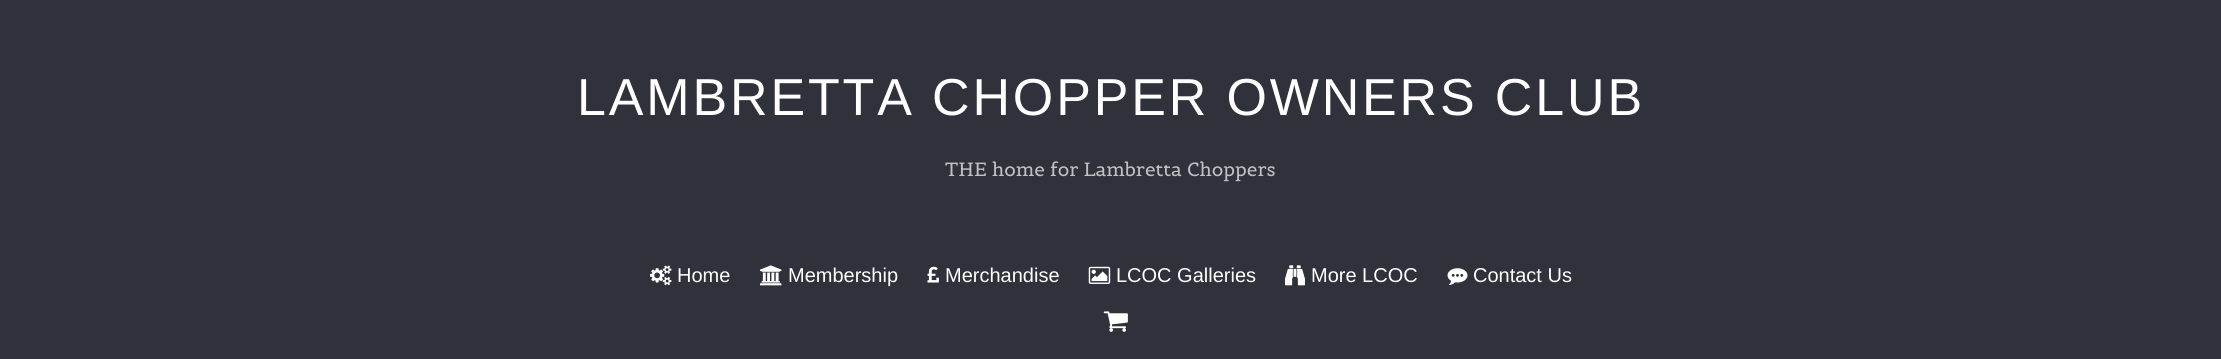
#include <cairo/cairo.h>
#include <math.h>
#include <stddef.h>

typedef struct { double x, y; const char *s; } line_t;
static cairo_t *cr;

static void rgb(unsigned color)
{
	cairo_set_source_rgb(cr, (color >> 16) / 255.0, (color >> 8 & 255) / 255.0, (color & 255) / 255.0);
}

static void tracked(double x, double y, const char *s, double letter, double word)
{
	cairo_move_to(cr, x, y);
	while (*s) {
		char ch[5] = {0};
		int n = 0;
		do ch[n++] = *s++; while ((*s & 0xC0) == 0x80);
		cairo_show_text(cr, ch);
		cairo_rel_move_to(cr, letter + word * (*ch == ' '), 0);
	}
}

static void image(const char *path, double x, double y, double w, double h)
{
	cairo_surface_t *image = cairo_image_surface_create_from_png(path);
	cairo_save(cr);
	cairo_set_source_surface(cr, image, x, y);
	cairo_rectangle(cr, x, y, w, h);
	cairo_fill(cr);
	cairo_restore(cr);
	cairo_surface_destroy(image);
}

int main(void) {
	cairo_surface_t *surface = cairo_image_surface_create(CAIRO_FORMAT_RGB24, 2221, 359);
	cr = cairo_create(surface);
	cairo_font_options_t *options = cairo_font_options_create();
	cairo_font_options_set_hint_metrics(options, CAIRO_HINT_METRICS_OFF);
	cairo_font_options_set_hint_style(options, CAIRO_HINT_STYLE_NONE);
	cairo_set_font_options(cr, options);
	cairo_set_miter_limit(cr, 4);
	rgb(0x2f313b);
	cairo_paint(cr);
	image("img/1.png", 650, 265, 22, 21);
	image("img/2.png", 760, 265, 22, 21);
	image("img/3.png", 927, 266, 12, 17);
	image("img/4.png", 1088, 266, 23, 18);
	image("img/5.png", 1285, 265, 20, 21);
	image("img/6.png", 1447, 268, 21, 17);
	image("img/7.png", 1103, 311, 25, 21);
	cairo_select_font_face(cr, "Liberation Sans", CAIRO_FONT_SLANT_NORMAL, CAIRO_FONT_WEIGHT_NORMAL);
	cairo_set_font_size(cr, 52);
	rgb(0xffffff);
	tracked(577, 115, "LAMBRETTA CHOPPER OWNERS CLUB", 2.85, 0);
	cairo_select_font_face(cr, "Belgrano", CAIRO_FONT_SLANT_NORMAL, CAIRO_FONT_WEIGHT_NORMAL);
	cairo_set_font_size(cr, 19);
	rgb(0xc1c1c4);
	cairo_move_to(cr, 945, 176);
	cairo_show_text(cr, "THE home for Lambretta Choppers");
	cairo_select_font_face(cr, "Liberation Sans", CAIRO_FONT_SLANT_NORMAL, CAIRO_FONT_WEIGHT_NORMAL);
	cairo_set_font_size(cr, 20);
	rgb(0xffffff);
	{
		static const line_t items[] = {
			{677, 282, "Home"},
			{788, 282, "Membership"},
			{945, 282, "Merchandise"},
			{1116, 282, "LCOC Galleries"},
			{1311, 282, "More LCOC"},
			{1473, 282, "Contact Us"},
		};
		for (size_t i = 0; i < sizeof items / sizeof *items; i++) {
			cairo_move_to(cr, items[i].x, items[i].y);
			cairo_show_text(cr, items[i].s);
		}
	}
	cairo_surface_write_to_png(surface, "page.png");
	cairo_font_options_destroy(options);
	cairo_destroy(cr);
	cairo_surface_destroy(surface);
	return 0;
}
